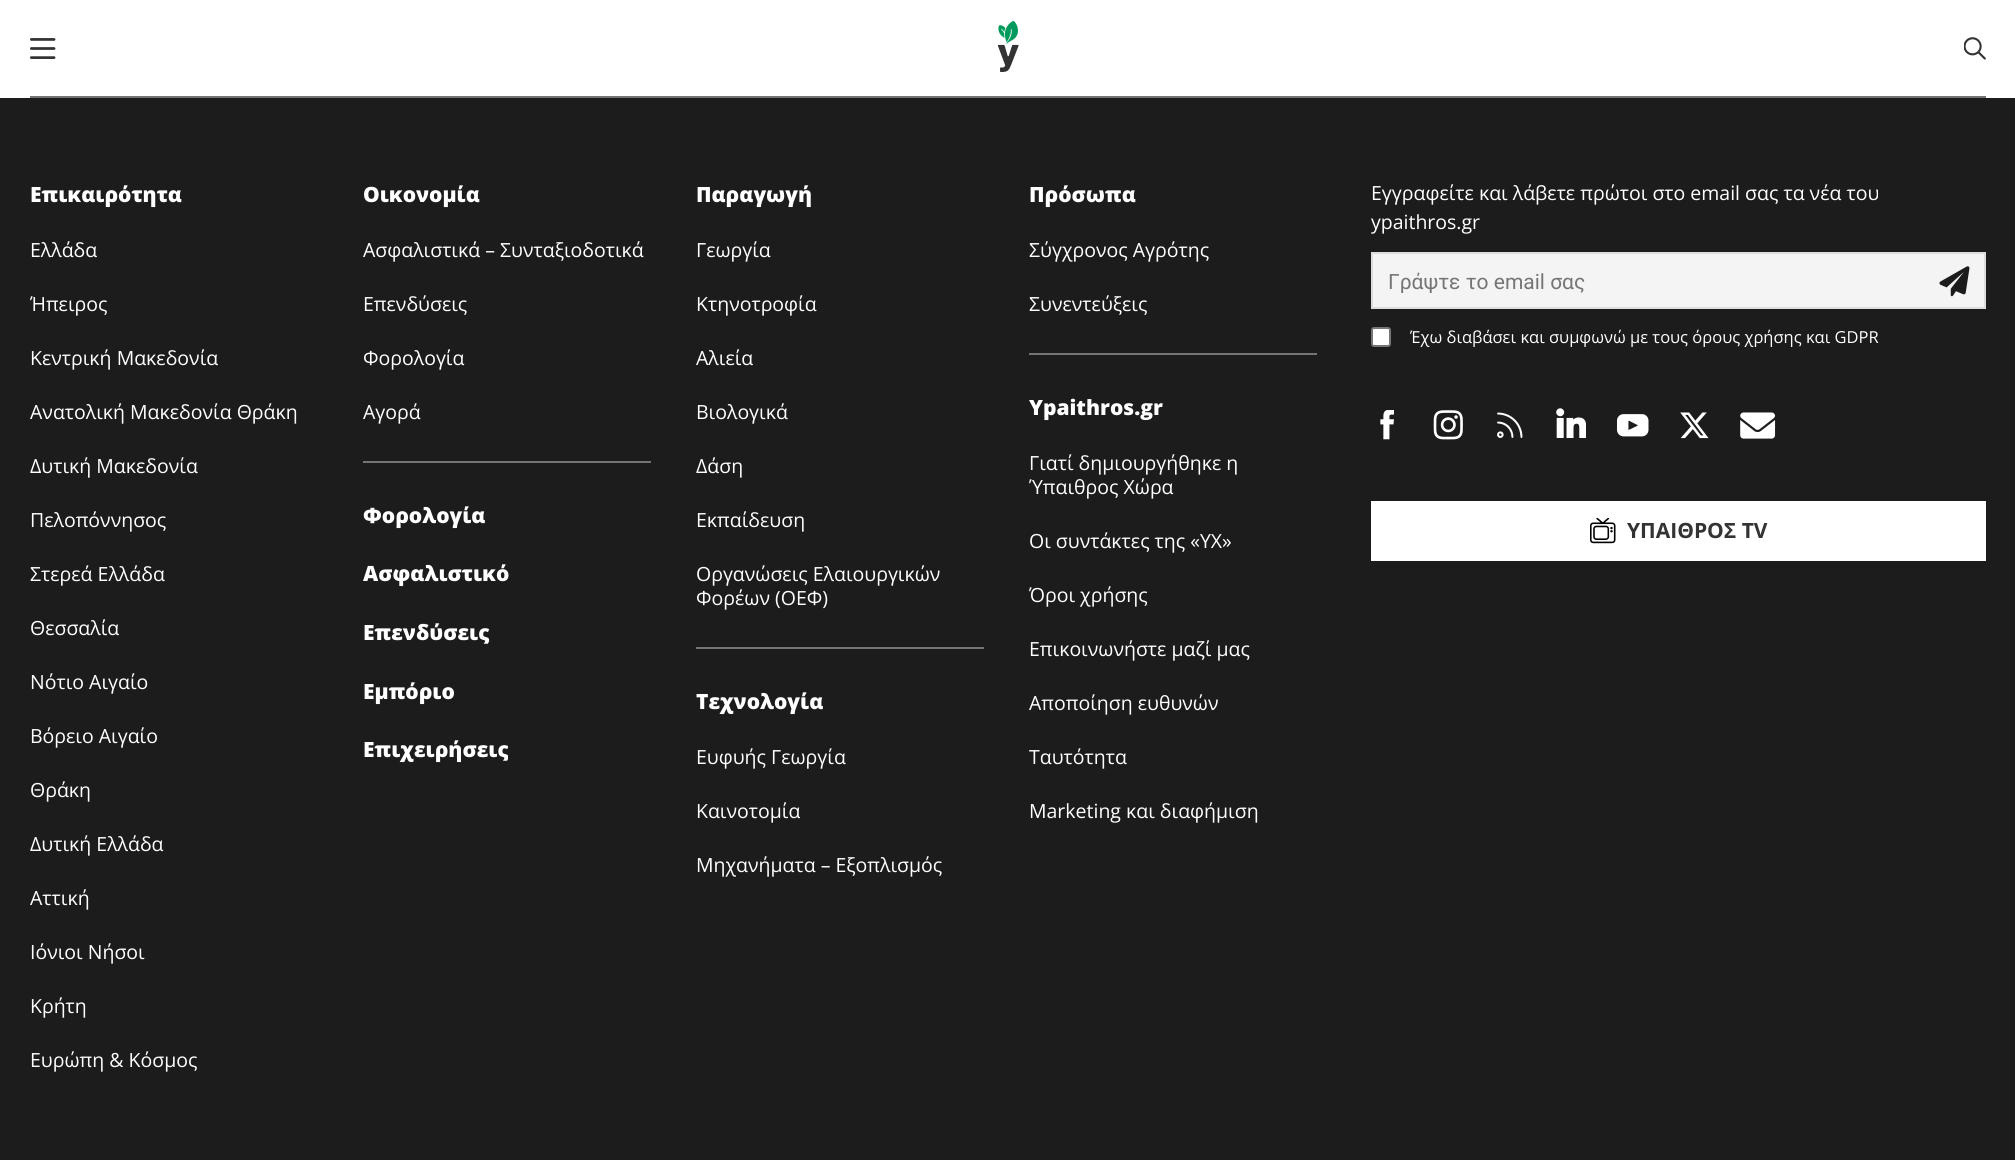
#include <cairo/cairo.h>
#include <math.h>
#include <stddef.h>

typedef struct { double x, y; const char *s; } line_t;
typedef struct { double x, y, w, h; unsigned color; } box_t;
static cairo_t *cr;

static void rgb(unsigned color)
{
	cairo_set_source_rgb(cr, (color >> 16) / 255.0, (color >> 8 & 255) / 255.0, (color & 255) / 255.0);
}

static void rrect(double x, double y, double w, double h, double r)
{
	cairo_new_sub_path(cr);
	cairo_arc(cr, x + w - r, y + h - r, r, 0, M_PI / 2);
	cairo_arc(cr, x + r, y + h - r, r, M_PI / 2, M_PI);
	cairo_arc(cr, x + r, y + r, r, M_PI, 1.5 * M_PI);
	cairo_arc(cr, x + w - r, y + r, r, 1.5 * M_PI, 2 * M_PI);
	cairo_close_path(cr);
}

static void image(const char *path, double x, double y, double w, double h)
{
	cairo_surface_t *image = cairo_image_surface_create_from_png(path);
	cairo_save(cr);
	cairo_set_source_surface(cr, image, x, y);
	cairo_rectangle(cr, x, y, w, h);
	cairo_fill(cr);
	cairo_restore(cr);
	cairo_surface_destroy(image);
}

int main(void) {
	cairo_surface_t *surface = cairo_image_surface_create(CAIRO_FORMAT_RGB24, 2015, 1160);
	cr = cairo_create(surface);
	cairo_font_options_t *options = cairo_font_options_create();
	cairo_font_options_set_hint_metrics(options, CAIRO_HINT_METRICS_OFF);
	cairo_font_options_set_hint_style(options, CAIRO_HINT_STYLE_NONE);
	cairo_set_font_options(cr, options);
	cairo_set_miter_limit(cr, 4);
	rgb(0x1c1c1c);
	cairo_paint(cr);
	rgb(0xffffff);
	cairo_rectangle(cr, 0, 0, 2015, 98);
	cairo_fill(cr);
	rgb(0x747474);
	cairo_rectangle(cr, 30, 96, 1956, 2);
	cairo_fill(cr);
	image("img/1.png", 30, 38, 26, 21);
	image("img/2.png", 997, 21, 22, 51);
	image("img/3.png", 1964, 37, 22, 23);
	{
		static const box_t items[] = {
			{363, 461, 288, 2, 0x747474},
			{696, 647, 288, 2, 0x747474},
			{1029, 353, 288, 2, 0x747474},
		};
		for (size_t i = 0; i < sizeof items / sizeof *items; i++) {
			rgb(items[i].color);
			cairo_rectangle(cr, items[i].x, items[i].y, items[i].w, items[i].h);
			cairo_fill(cr);
		}
	}
	rgb(0xf4f4f4);
	cairo_rectangle(cr, 1372, 253, 613, 55);
	cairo_fill_preserve(cr);
	rgb(0xdddddd);
	cairo_stroke(cr);
	image("img/4.png", 1939, 266, 31, 31);
	rgb(0xffffff);
	rrect(1372, 328, 18, 18, 2);
	cairo_fill_preserve(cr);
	rgb(0x767676);
	cairo_stroke(cr);
	image("img/5.png", 1380, 410, 14, 30);
	image("img/6.png", 1433, 410, 30, 30);
	image("img/7.png", 1497, 412, 26, 26);
	image("img/8.png", 1556, 408, 30, 30);
	image("img/9.png", 1617, 414, 32, 23);
	image("img/10.png", 1680, 412, 29, 27);
	image("img/11.png", 1740, 412, 36, 27);
	rgb(0xffffff);
	cairo_rectangle(cr, 1371, 501, 615, 60);
	cairo_fill(cr);
	image("img/12.png", 1590, 518, 26, 26);
	cairo_select_font_face(cr, "Open Sans ExtraBold", CAIRO_FONT_SLANT_NORMAL, CAIRO_FONT_WEIGHT_NORMAL);
	cairo_set_font_size(cr, 21);
	cairo_move_to(cr, 30, 202);
	cairo_show_text(cr, "Επικαιρότητα");
	cairo_select_font_face(cr, "Open Sans", CAIRO_FONT_SLANT_NORMAL, CAIRO_FONT_WEIGHT_NORMAL);
	cairo_set_font_size(cr, 19.5);
	{
		static const line_t items[] = {
			{30, 257, "Ελλάδα"},
			{30, 311, "Ήπειρος"},
			{30, 365, "Κεντρική Μακεδονία"},
			{30, 419, "Ανατολική Μακεδονία Θράκη"},
			{30, 473, "Δυτική Μακεδονία"},
			{30, 527, "Πελοπόννησος"},
			{30, 581, "Στερεά Ελλάδα"},
			{30, 635, "Θεσσαλία"},
			{30, 689, "Νότιο Αιγαίο"},
			{30, 743, "Βόρειο Αιγαίο"},
			{30, 797, "Θράκη"},
			{30, 851, "Δυτική Ελλάδα"},
			{30, 905, "Αττική"},
			{30, 959, "Ιόνιοι Νήσοι"},
			{30, 1013, "Κρήτη"},
			{30, 1067, "Ευρώπη & Κόσμος"},
		};
		for (size_t i = 0; i < sizeof items / sizeof *items; i++) {
			cairo_move_to(cr, items[i].x, items[i].y);
			cairo_show_text(cr, items[i].s);
		}
	}
	cairo_select_font_face(cr, "Open Sans ExtraBold", CAIRO_FONT_SLANT_NORMAL, CAIRO_FONT_WEIGHT_NORMAL);
	cairo_set_font_size(cr, 21);
	cairo_move_to(cr, 363, 202);
	cairo_show_text(cr, "Οικονομία");
	cairo_select_font_face(cr, "Open Sans", CAIRO_FONT_SLANT_NORMAL, CAIRO_FONT_WEIGHT_NORMAL);
	cairo_set_font_size(cr, 19.5);
	{
		static const line_t items[] = {
			{363, 257, "Ασφαλιστικά – Συνταξιοδοτικά"},
			{363, 311, "Επενδύσεις"},
			{363, 365, "Φορολογία"},
			{363, 419, "Αγορά"},
		};
		for (size_t i = 0; i < sizeof items / sizeof *items; i++) {
			cairo_move_to(cr, items[i].x, items[i].y);
			cairo_show_text(cr, items[i].s);
		}
	}
	cairo_select_font_face(cr, "Open Sans ExtraBold", CAIRO_FONT_SLANT_NORMAL, CAIRO_FONT_WEIGHT_NORMAL);
	cairo_set_font_size(cr, 21);
	{
		static const line_t items[] = {
			{363, 523, "Φορολογία"},
			{363, 581, "Ασφαλιστικό"},
			{363, 640, "Επενδύσεις"},
			{363, 699, "Εμπόριο"},
			{363, 757, "Επιχειρήσεις"},
			{696, 202, "Παραγωγή"},
		};
		for (size_t i = 0; i < sizeof items / sizeof *items; i++) {
			cairo_move_to(cr, items[i].x, items[i].y);
			cairo_show_text(cr, items[i].s);
		}
	}
	cairo_select_font_face(cr, "Open Sans", CAIRO_FONT_SLANT_NORMAL, CAIRO_FONT_WEIGHT_NORMAL);
	cairo_set_font_size(cr, 19.5);
	{
		static const line_t items[] = {
			{696, 257, "Γεωργία"},
			{696, 311, "Κτηνοτροφία"},
			{696, 365, "Αλιεία"},
			{696, 419, "Βιολογικά"},
			{696, 473, "Δάση"},
			{696, 527, "Εκπαίδευση"},
			{696, 581, "Οργανώσεις Ελαιουργικών"},
			{696, 605, "Φορέων (ΟΕΦ)"},
		};
		for (size_t i = 0; i < sizeof items / sizeof *items; i++) {
			cairo_move_to(cr, items[i].x, items[i].y);
			cairo_show_text(cr, items[i].s);
		}
	}
	cairo_select_font_face(cr, "Open Sans ExtraBold", CAIRO_FONT_SLANT_NORMAL, CAIRO_FONT_WEIGHT_NORMAL);
	cairo_set_font_size(cr, 21);
	cairo_move_to(cr, 696, 709);
	cairo_show_text(cr, "Τεχνολογία");
	cairo_select_font_face(cr, "Open Sans", CAIRO_FONT_SLANT_NORMAL, CAIRO_FONT_WEIGHT_NORMAL);
	cairo_set_font_size(cr, 19.5);
	{
		static const line_t items[] = {
			{696, 764, "Ευφυής Γεωργία"},
			{696, 818, "Kαινοτομία"},
			{696, 872, "Μηχανήματα – Εξοπλισμός"},
		};
		for (size_t i = 0; i < sizeof items / sizeof *items; i++) {
			cairo_move_to(cr, items[i].x, items[i].y);
			cairo_show_text(cr, items[i].s);
		}
	}
	cairo_select_font_face(cr, "Open Sans ExtraBold", CAIRO_FONT_SLANT_NORMAL, CAIRO_FONT_WEIGHT_NORMAL);
	cairo_set_font_size(cr, 21);
	cairo_move_to(cr, 1029, 202);
	cairo_show_text(cr, "Πρόσωπα");
	cairo_select_font_face(cr, "Open Sans", CAIRO_FONT_SLANT_NORMAL, CAIRO_FONT_WEIGHT_NORMAL);
	cairo_set_font_size(cr, 19.5);
	cairo_move_to(cr, 1029, 257);
	cairo_show_text(cr, "Σύγχρονος Αγρότης");
	cairo_move_to(cr, 1029, 311);
	cairo_show_text(cr, "Συνεντεύξεις");
	cairo_select_font_face(cr, "Open Sans ExtraBold", CAIRO_FONT_SLANT_NORMAL, CAIRO_FONT_WEIGHT_NORMAL);
	cairo_set_font_size(cr, 21);
	cairo_move_to(cr, 1029, 415);
	cairo_show_text(cr, "Ypaithros.gr");
	cairo_select_font_face(cr, "Open Sans", CAIRO_FONT_SLANT_NORMAL, CAIRO_FONT_WEIGHT_NORMAL);
	cairo_set_font_size(cr, 19.5);
	{
		static const line_t items[] = {
			{1029, 470, "Γιατί δημιουργήθηκε η"},
			{1029, 494, "Ύπαιθρος Χώρα"},
			{1029, 548, "Οι συντάκτες της «ΥΧ»"},
			{1029, 602, "Όροι χρήσης"},
			{1029, 656, "Επικοινωνήστε μαζί μας"},
			{1029, 710, "Αποποίηση ευθυνών"},
			{1029, 764, "Ταυτότητα"},
			{1029, 818, "Marketing και διαφήμιση"},
			{1371, 200, "Εγγραφείτε και λάβετε πρώτοι στο email σας τα νέα του"},
			{1371, 229, "ypaithros.gr"},
		};
		for (size_t i = 0; i < sizeof items / sizeof *items; i++) {
			cairo_move_to(cr, items[i].x, items[i].y);
			cairo_show_text(cr, items[i].s);
		}
	}
	cairo_save(cr);
	cairo_rectangle(cr, 1388, 269, 582, 24);
	cairo_clip(cr);
	cairo_select_font_face(cr, "Roboto", CAIRO_FONT_SLANT_NORMAL, CAIRO_FONT_WEIGHT_NORMAL);
	cairo_set_font_size(cr, 21);
	rgb(0x757575);
	cairo_move_to(cr, 1388, 289);
	cairo_show_text(cr, "Γράψτε το email σας");
	cairo_restore(cr);
	cairo_set_font_size(cr, 16.5);
	cairo_move_to(cr, 1410, 343);
	cairo_show_text(cr, "Έχω διαβάσει και συμφωνώ με τους όρους χρήσης και GDPR");
	cairo_select_font_face(cr, "Open Sans", CAIRO_FONT_SLANT_NORMAL, CAIRO_FONT_WEIGHT_BOLD);
	cairo_set_font_size(cr, 21);
	rgb(0x333333);
	cairo_move_to(cr, 1627, 538);
	cairo_show_text(cr, "ΥΠΑΙΘΡΟΣ TV");
	cairo_surface_write_to_png(surface, "page.png");
	cairo_font_options_destroy(options);
	cairo_destroy(cr);
	cairo_surface_destroy(surface);
	return 0;
}
